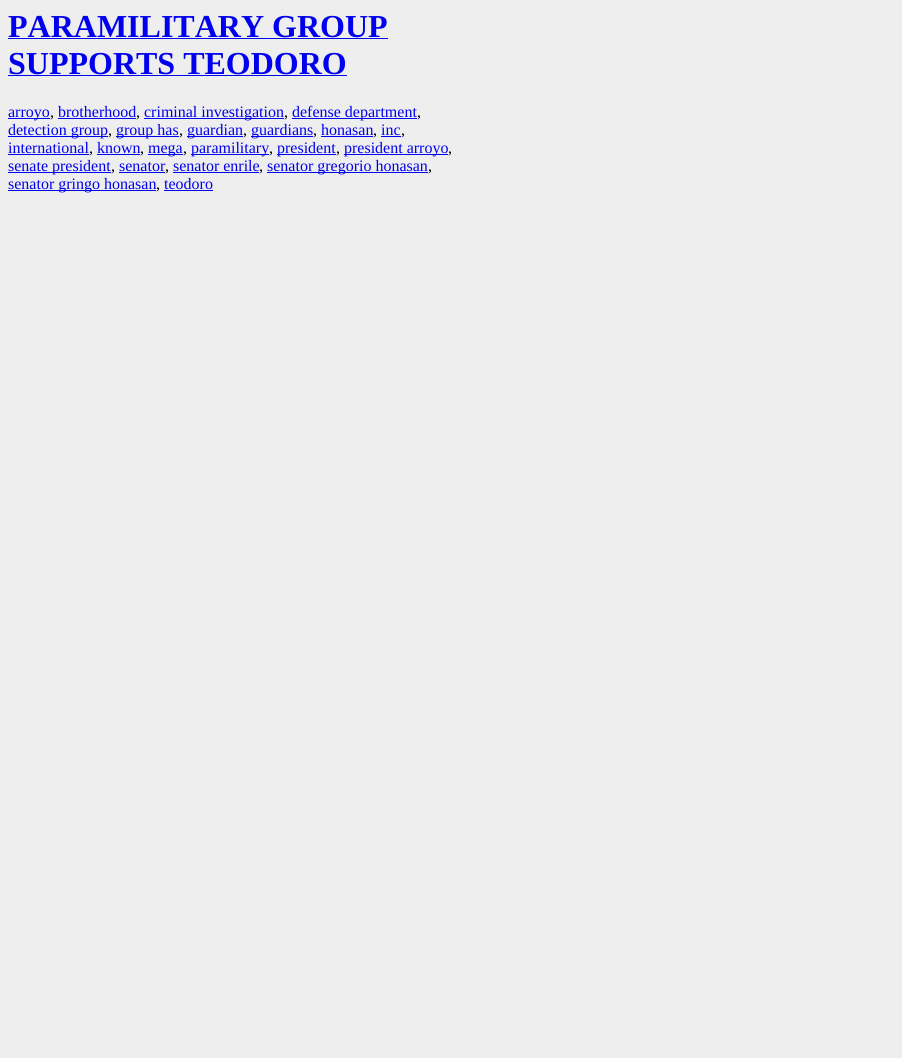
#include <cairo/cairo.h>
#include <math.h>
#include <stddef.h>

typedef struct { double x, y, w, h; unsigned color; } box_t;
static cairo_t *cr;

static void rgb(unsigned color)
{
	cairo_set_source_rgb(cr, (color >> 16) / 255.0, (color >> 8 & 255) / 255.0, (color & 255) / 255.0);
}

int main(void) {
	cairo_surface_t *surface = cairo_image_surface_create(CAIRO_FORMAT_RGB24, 902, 1058);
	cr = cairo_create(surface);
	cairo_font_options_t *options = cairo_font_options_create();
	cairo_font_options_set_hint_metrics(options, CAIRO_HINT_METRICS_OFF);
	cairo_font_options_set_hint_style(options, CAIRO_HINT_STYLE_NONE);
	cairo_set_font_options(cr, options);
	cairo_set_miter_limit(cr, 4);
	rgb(0xeeeeee);
	cairo_paint(cr);
	{
		static const box_t items[] = {
			{8, 38, 380, 1, 0x0000ee},
			{8, 75, 339, 1, 0x0000ee},
			{8, 118, 42, 1, 0x0000ee},
			{58, 118, 78, 1, 0x0000ee},
			{144, 118, 140, 1, 0x0000ee},
			{292, 118, 125, 1, 0x0000ee},
			{8, 136, 100, 1, 0x0000ee},
			{116, 136, 63, 1, 0x0000ee},
			{187, 136, 56, 1, 0x0000ee},
			{251, 136, 62, 1, 0x0000ee},
			{321, 136, 52, 1, 0x0000ee},
			{381, 136, 20, 1, 0x0000ee},
			{8, 154, 81, 1, 0x0000ee},
			{97, 154, 43, 1, 0x0000ee},
			{148, 154, 35, 1, 0x0000ee},
			{191, 154, 78, 1, 0x0000ee},
			{277, 154, 59, 1, 0x0000ee},
			{344, 154, 104, 1, 0x0000ee},
			{8, 172, 103, 1, 0x0000ee},
			{119, 172, 46, 1, 0x0000ee},
			{173, 172, 86, 1, 0x0000ee},
			{267, 172, 161, 1, 0x0000ee},
			{8, 190, 148, 1, 0x0000ee},
			{164, 190, 49, 1, 0x0000ee},
		};
		for (size_t i = 0; i < sizeof items / sizeof *items; i++) {
			rgb(items[i].color);
			cairo_rectangle(cr, items[i].x, items[i].y, items[i].w, items[i].h);
			cairo_fill(cr);
		}
	}
	cairo_select_font_face(cr, "Liberation Serif", CAIRO_FONT_SLANT_NORMAL, CAIRO_FONT_WEIGHT_BOLD);
	cairo_set_font_size(cr, 32);
	cairo_move_to(cr, 8, 37);
	cairo_show_text(cr, "PARAMILITARY GROUP");
	cairo_move_to(cr, 8, 74);
	cairo_show_text(cr, "SUPPORTS TEODORO");
	cairo_select_font_face(cr, "Liberation Serif", CAIRO_FONT_SLANT_NORMAL, CAIRO_FONT_WEIGHT_NORMAL);
	cairo_set_font_size(cr, 16);
	cairo_move_to(cr, 8, 117);
	cairo_show_text(cr, "arroyo");
	rgb(0x000000);
	cairo_move_to(cr, 50, 117);
	cairo_show_text(cr, ",");
	rgb(0x0000ee);
	cairo_move_to(cr, 58, 117);
	cairo_show_text(cr, "brotherhood");
	rgb(0x000000);
	cairo_move_to(cr, 136, 117);
	cairo_show_text(cr, ",");
	rgb(0x0000ee);
	cairo_move_to(cr, 144, 117);
	cairo_show_text(cr, "criminal investigation");
	rgb(0x000000);
	cairo_move_to(cr, 284, 117);
	cairo_show_text(cr, ",");
	rgb(0x0000ee);
	cairo_move_to(cr, 292, 117);
	cairo_show_text(cr, "defense department");
	rgb(0x000000);
	cairo_move_to(cr, 417, 117);
	cairo_show_text(cr, ",");
	rgb(0x0000ee);
	cairo_move_to(cr, 8, 135);
	cairo_show_text(cr, "detection group");
	rgb(0x000000);
	cairo_move_to(cr, 108, 135);
	cairo_show_text(cr, ",");
	rgb(0x0000ee);
	cairo_move_to(cr, 116, 135);
	cairo_show_text(cr, "group has");
	rgb(0x000000);
	cairo_move_to(cr, 179, 135);
	cairo_show_text(cr, ",");
	rgb(0x0000ee);
	cairo_move_to(cr, 187, 135);
	cairo_show_text(cr, "guardian");
	rgb(0x000000);
	cairo_move_to(cr, 243, 135);
	cairo_show_text(cr, ",");
	rgb(0x0000ee);
	cairo_move_to(cr, 251, 135);
	cairo_show_text(cr, "guardians");
	rgb(0x000000);
	cairo_move_to(cr, 313, 135);
	cairo_show_text(cr, ",");
	rgb(0x0000ee);
	cairo_move_to(cr, 321, 135);
	cairo_show_text(cr, "honasan");
	rgb(0x000000);
	cairo_move_to(cr, 373, 135);
	cairo_show_text(cr, ",");
	rgb(0x0000ee);
	cairo_move_to(cr, 381, 135);
	cairo_show_text(cr, "inc");
	rgb(0x000000);
	cairo_move_to(cr, 401, 135);
	cairo_show_text(cr, ",");
	rgb(0x0000ee);
	cairo_move_to(cr, 8, 153);
	cairo_show_text(cr, "international");
	rgb(0x000000);
	cairo_move_to(cr, 89, 153);
	cairo_show_text(cr, ",");
	rgb(0x0000ee);
	cairo_move_to(cr, 97, 153);
	cairo_show_text(cr, "known");
	rgb(0x000000);
	cairo_move_to(cr, 140, 153);
	cairo_show_text(cr, ",");
	rgb(0x0000ee);
	cairo_move_to(cr, 148, 153);
	cairo_show_text(cr, "mega");
	rgb(0x000000);
	cairo_move_to(cr, 183, 153);
	cairo_show_text(cr, ",");
	rgb(0x0000ee);
	cairo_move_to(cr, 191, 153);
	cairo_show_text(cr, "paramilitary");
	rgb(0x000000);
	cairo_move_to(cr, 269, 153);
	cairo_show_text(cr, ",");
	rgb(0x0000ee);
	cairo_move_to(cr, 277, 153);
	cairo_show_text(cr, "president");
	rgb(0x000000);
	cairo_move_to(cr, 336, 153);
	cairo_show_text(cr, ",");
	rgb(0x0000ee);
	cairo_move_to(cr, 344, 153);
	cairo_show_text(cr, "president arroyo");
	rgb(0x000000);
	cairo_move_to(cr, 448, 153);
	cairo_show_text(cr, ",");
	rgb(0x0000ee);
	cairo_move_to(cr, 8, 171);
	cairo_show_text(cr, "senate president");
	rgb(0x000000);
	cairo_move_to(cr, 111, 171);
	cairo_show_text(cr, ",");
	rgb(0x0000ee);
	cairo_move_to(cr, 119, 171);
	cairo_show_text(cr, "senator");
	rgb(0x000000);
	cairo_move_to(cr, 165, 171);
	cairo_show_text(cr, ",");
	rgb(0x0000ee);
	cairo_move_to(cr, 173, 171);
	cairo_show_text(cr, "senator enrile");
	rgb(0x000000);
	cairo_move_to(cr, 259, 171);
	cairo_show_text(cr, ",");
	rgb(0x0000ee);
	cairo_move_to(cr, 267, 171);
	cairo_show_text(cr, "senator gregorio honasan");
	rgb(0x000000);
	cairo_move_to(cr, 428, 171);
	cairo_show_text(cr, ",");
	rgb(0x0000ee);
	cairo_move_to(cr, 8, 189);
	cairo_show_text(cr, "senator gringo honasan");
	rgb(0x000000);
	cairo_move_to(cr, 156, 189);
	cairo_show_text(cr, ",");
	rgb(0x0000ee);
	cairo_move_to(cr, 164, 189);
	cairo_show_text(cr, "teodoro");
	cairo_surface_write_to_png(surface, "page.png");
	cairo_font_options_destroy(options);
	cairo_destroy(cr);
	cairo_surface_destroy(surface);
	return 0;
}
